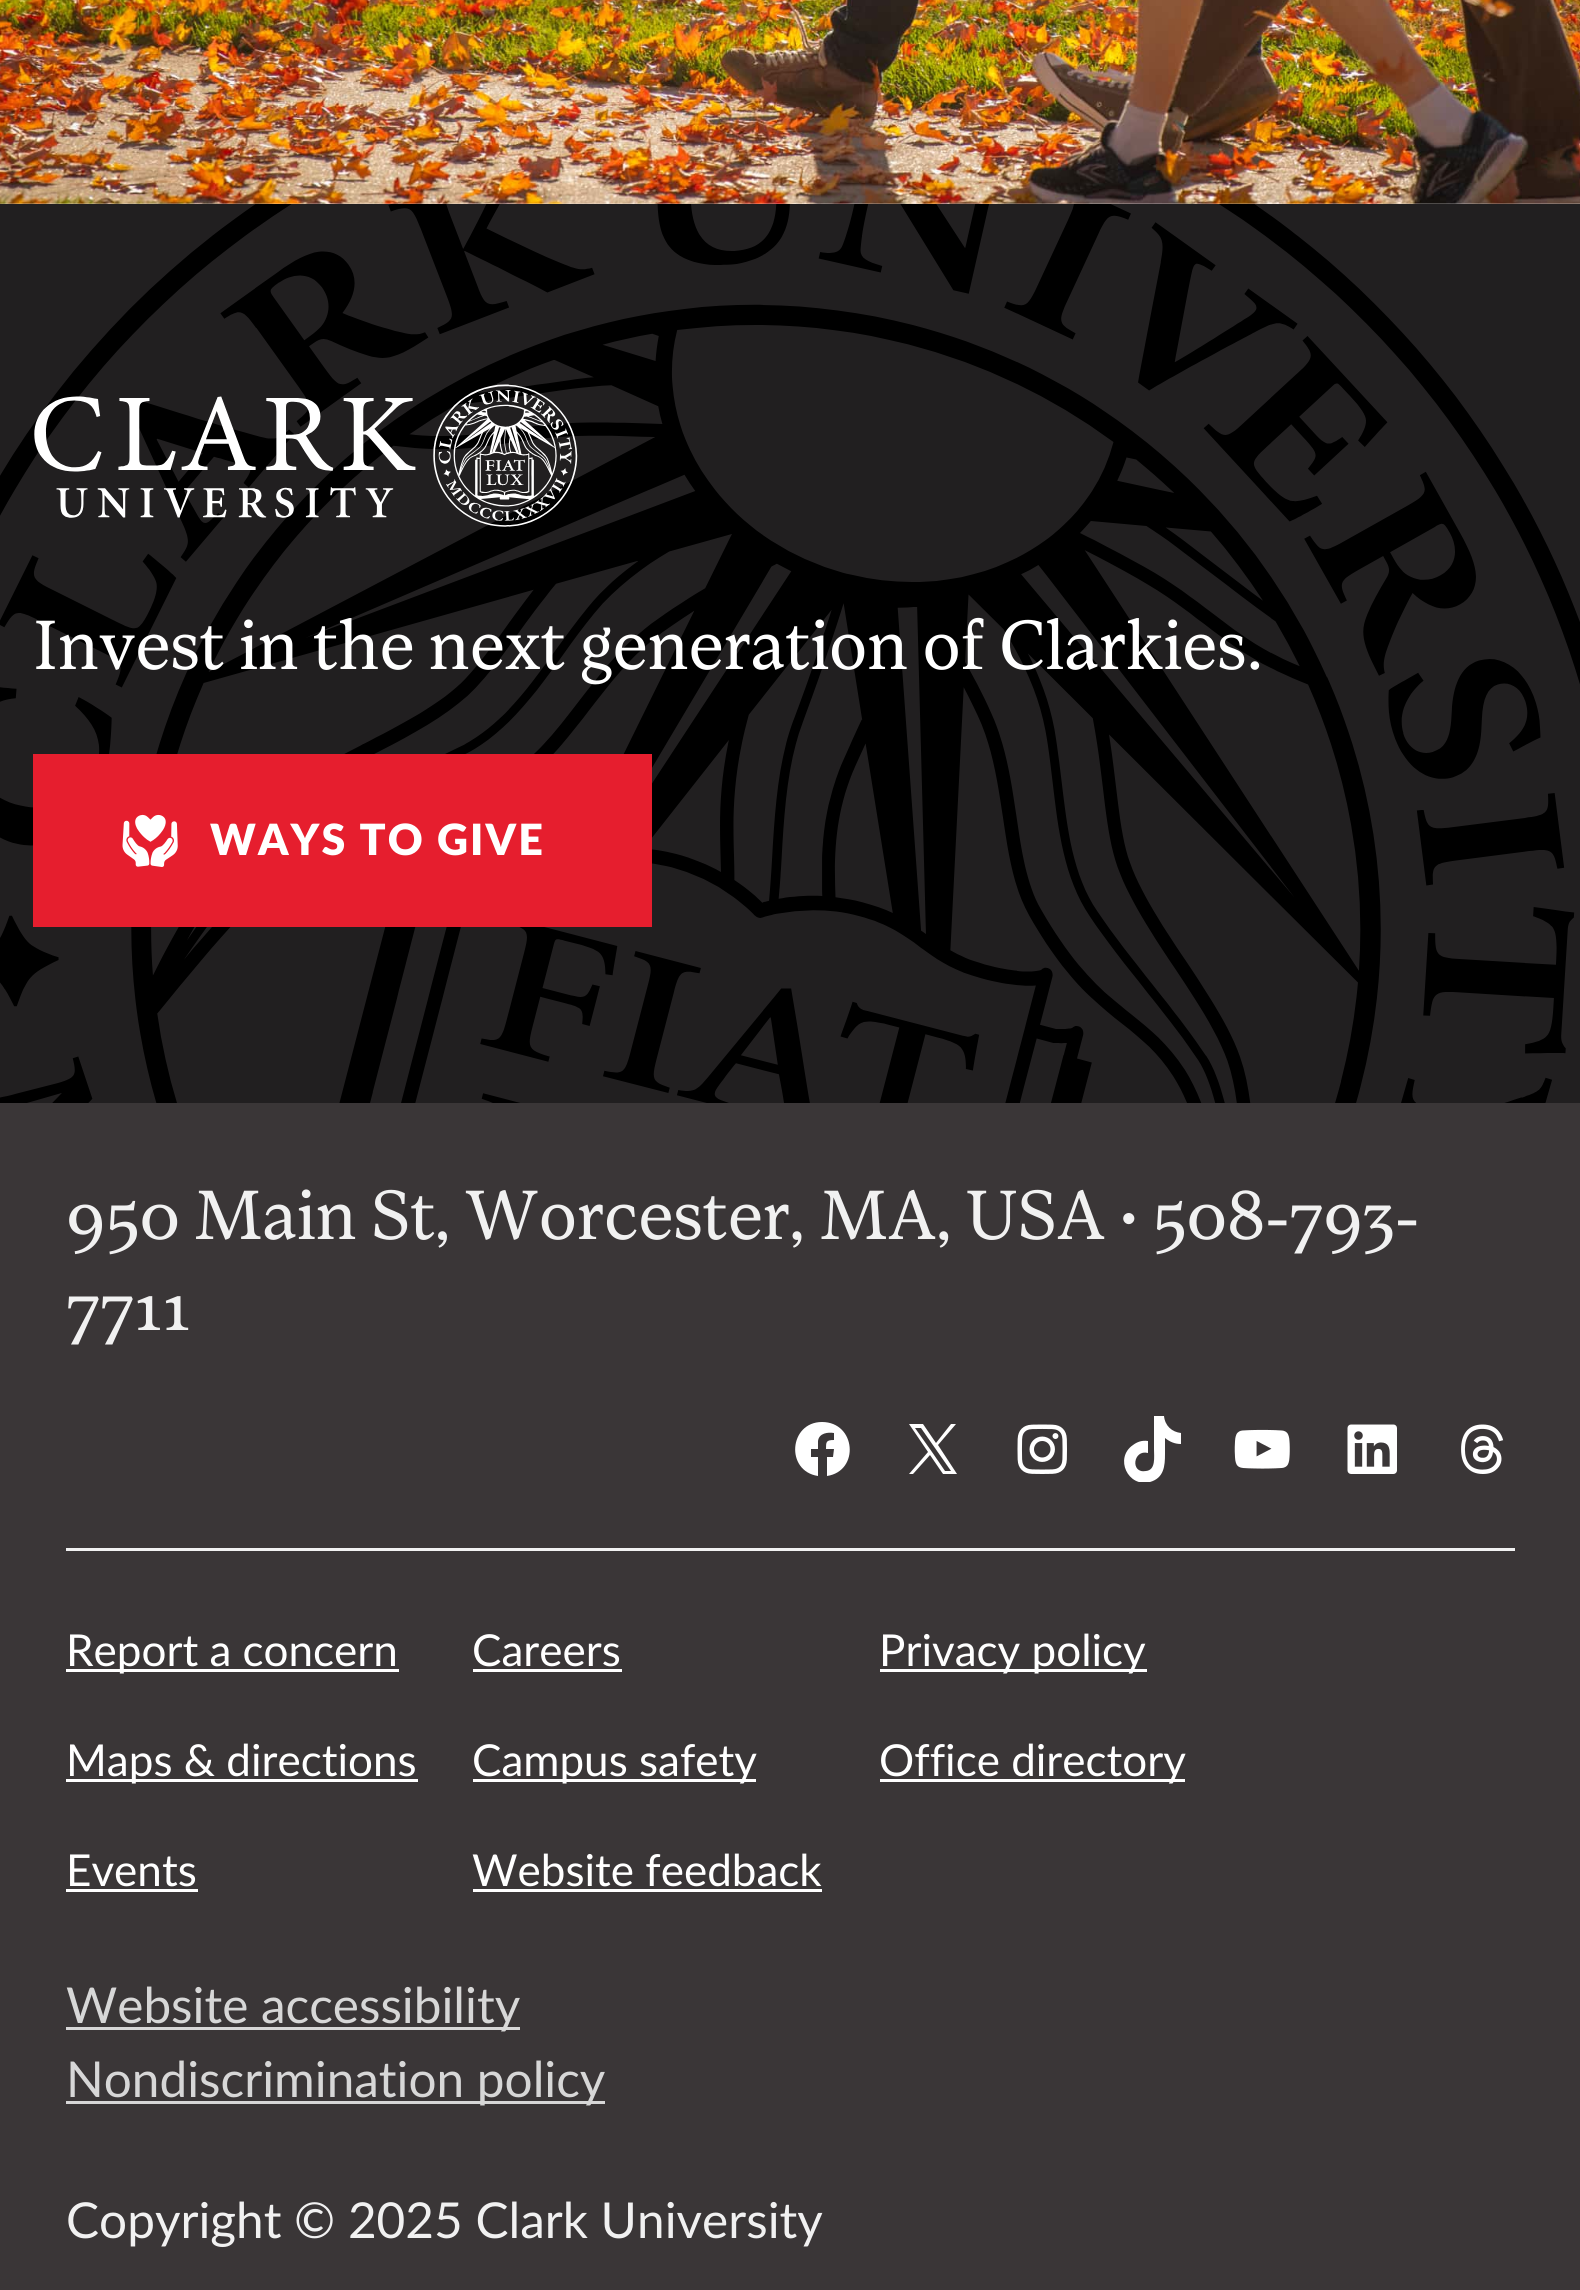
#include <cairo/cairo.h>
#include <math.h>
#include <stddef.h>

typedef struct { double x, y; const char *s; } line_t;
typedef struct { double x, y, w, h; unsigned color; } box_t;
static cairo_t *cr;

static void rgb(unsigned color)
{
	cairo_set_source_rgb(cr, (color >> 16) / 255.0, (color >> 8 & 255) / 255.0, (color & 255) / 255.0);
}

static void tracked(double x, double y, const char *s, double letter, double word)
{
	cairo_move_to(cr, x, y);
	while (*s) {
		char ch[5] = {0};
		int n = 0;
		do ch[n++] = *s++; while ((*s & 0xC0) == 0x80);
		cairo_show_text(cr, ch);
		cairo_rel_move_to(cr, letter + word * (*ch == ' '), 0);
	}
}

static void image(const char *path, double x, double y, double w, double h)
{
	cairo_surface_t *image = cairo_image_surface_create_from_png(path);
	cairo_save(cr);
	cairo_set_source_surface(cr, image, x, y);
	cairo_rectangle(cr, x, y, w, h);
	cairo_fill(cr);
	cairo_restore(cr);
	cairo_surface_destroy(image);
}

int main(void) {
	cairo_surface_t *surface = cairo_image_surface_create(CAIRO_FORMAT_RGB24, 1580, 2290);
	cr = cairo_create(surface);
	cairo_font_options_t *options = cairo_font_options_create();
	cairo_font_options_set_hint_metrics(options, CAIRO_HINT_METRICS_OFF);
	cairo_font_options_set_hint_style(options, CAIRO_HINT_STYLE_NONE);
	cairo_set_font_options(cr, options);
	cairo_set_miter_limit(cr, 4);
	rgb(0xffffff);
	cairo_paint(cr);
	image("img/1.png", 0, 0, 1580, 204);
	rgb(0x211f20);
	cairo_rectangle(cr, 0, 204, 1580, 899);
	cairo_fill(cr);
	image("img/2.png", 0, 204, 1580, 899);
	image("img/3.png", 34, 384, 544, 143);
	rgb(0xe61e2e);
	cairo_rectangle(cr, 33, 754, 619, 173);
	cairo_fill(cr);
	image("img/4.png", 122, 814, 56, 53);
	rgb(0x3a3637);
	cairo_rectangle(cr, 0, 1103, 1580, 1187);
	cairo_fill(cr);
	rgb(0xffffff);
	cairo_new_path(cr);
	cairo_move_to(cr, 822, 1422);
	cairo_curve_to(cr, 789, 1422, 785, 1471, 818, 1476);
	cairo_line_to(cr, 818, 1457);
	cairo_line_to(cr, 811, 1457);
	cairo_line_to(cr, 811, 1449);
	cairo_line_to(cr, 818, 1449);
	cairo_line_to(cr, 818, 1441);
	cairo_curve_to(cr, 819, 1433, 828, 1432, 834, 1433);
	cairo_line_to(cr, 834, 1440);
	cairo_curve_to(cr, 826, 1440, 826, 1442, 826, 1449);
	cairo_line_to(cr, 834, 1449);
	cairo_line_to(cr, 833, 1457);
	cairo_line_to(cr, 827, 1457);
	cairo_line_to(cr, 827, 1476);
	cairo_curve_to(cr, 860, 1471, 856, 1422, 822, 1422);
	cairo_close_path(cr);
	cairo_fill(cr);
	cairo_new_path(cr);
	cairo_move_to(cr, 938, 1445);
	cairo_line_to(cr, 956, 1424);
	cairo_line_to(cr, 951, 1424);
	cairo_line_to(cr, 936, 1443);
	cairo_line_to(cr, 923, 1424);
	cairo_line_to(cr, 909, 1424);
	cairo_line_to(cr, 928, 1452);
	cairo_line_to(cr, 909, 1474);
	cairo_line_to(cr, 913, 1474);
	cairo_line_to(cr, 930, 1455);
	cairo_line_to(cr, 943, 1474);
	cairo_line_to(cr, 957, 1474);
	cairo_close_path(cr);
	cairo_move_to(cr, 932, 1452);
	cairo_line_to(cr, 915, 1428);
	cairo_line_to(cr, 921, 1428);
	cairo_line_to(cr, 951, 1471);
	cairo_line_to(cr, 945, 1471);
	cairo_close_path(cr);
	cairo_fill(cr);
	image("img/5.png", 1017, 1424, 50, 50);
	cairo_save(cr);
	cairo_rectangle(cr, 1119, 1416, 66, 66);
	cairo_clip(cr);
	cairo_new_path(cr);
	cairo_move_to(cr, 1154, 1416);
	cairo_line_to(cr, 1164, 1416);
	cairo_curve_to(cr, 1165, 1426, 1172, 1432, 1181, 1433);
	cairo_line_to(cr, 1181, 1444);
	cairo_curve_to(cr, 1175, 1444, 1170, 1442, 1165, 1438);
	cairo_line_to(cr, 1165, 1454);
	cairo_curve_to(cr, 1165, 1466, 1164, 1478, 1150, 1482);
	cairo_curve_to(cr, 1128, 1488, 1114, 1458, 1133, 1445);
	cairo_curve_to(cr, 1137, 1442, 1142, 1440, 1148, 1441);
	cairo_line_to(cr, 1148, 1453);
	cairo_curve_to(cr, 1133, 1449, 1130, 1474, 1146, 1471);
	cairo_curve_to(cr, 1156, 1470, 1154, 1457, 1154, 1449);
	cairo_close_path(cr);
	cairo_fill(cr);
	cairo_restore(cr);
	image("img/6.png", 1234, 1429, 56, 40);
	image("img/7.png", 1347, 1424, 50, 50);
	image("img/8.png", 1461, 1424, 43, 50);
	{
		static const box_t items[] = {
			{66, 1548, 1449, 3, 0xf1f1f1},
			{66, 1669, 333, 3, 0xffffff},
			{473, 1669, 149, 3, 0xffffff},
			{880, 1669, 267, 3, 0xffffff},
			{66, 1779, 352, 3, 0xffffff},
			{473, 1779, 283, 3, 0xffffff},
			{880, 1779, 305, 3, 0xffffff},
			{66, 1889, 132, 3, 0xffffff},
			{473, 1889, 349, 3, 0xffffff},
			{66, 2027, 454, 3, 0xd7d7d7},
			{66, 2101, 539, 3, 0xd7d7d7},
		};
		for (size_t i = 0; i < sizeof items / sizeof *items; i++) {
			rgb(items[i].color);
			cairo_rectangle(cr, items[i].x, items[i].y, items[i].w, items[i].h);
			cairo_fill(cr);
		}
	}
	cairo_select_font_face(cr, "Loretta", CAIRO_FONT_SLANT_NORMAL, CAIRO_FONT_WEIGHT_NORMAL);
	cairo_set_font_size(cr, 69.8);
	rgb(0xffffff);
	tracked(33, 669, "Invest in the next generation of Clarkies.", 0, -0.25);
	cairo_select_font_face(cr, "Lato Black", CAIRO_FONT_SLANT_NORMAL, CAIRO_FONT_WEIGHT_NORMAL);
	cairo_set_font_size(cr, 43);
	tracked(210, 855, "WAYS TO GIVE", 2.1, 0);
	cairo_select_font_face(cr, "Loretta", CAIRO_FONT_SLANT_NORMAL, CAIRO_FONT_WEIGHT_NORMAL);
	cairo_set_font_size(cr, 69.8);
	rgb(0xf1f1f1);
	tracked(66, 1239, "950 Main St, Worcester, MA, USA • 508-793-", 0, -0.25);
	cairo_move_to(cr, 66, 1330);
	cairo_show_text(cr, "7711");
	cairo_select_font_face(cr, "Lato", CAIRO_FONT_SLANT_NORMAL, CAIRO_FONT_WEIGHT_NORMAL);
	cairo_set_font_size(cr, 44);
	rgb(0xffffff);
	{
		static const line_t items[] = {
			{66, 1666, "Report a concern"},
			{472, 1666, "Careers"},
			{879, 1666, "Privacy policy"},
			{66, 1776, "Maps & directions"},
			{472, 1776, "Campus safety"},
			{879, 1776, "Office directory"},
			{66, 1886, "Events"},
			{472, 1886, "Website feedback"},
		};
		for (size_t i = 0; i < sizeof items / sizeof *items; i++) {
			cairo_move_to(cr, items[i].x, items[i].y);
			cairo_show_text(cr, items[i].s);
		}
	}
	cairo_set_font_size(cr, 49.5);
	rgb(0xd7d7d7);
	cairo_move_to(cr, 66, 2023);
	cairo_show_text(cr, "Website accessibility");
	cairo_move_to(cr, 66, 2097);
	cairo_show_text(cr, "Nondiscrimination policy");
	rgb(0xf1f1f1);
	cairo_move_to(cr, 66, 2238);
	cairo_show_text(cr, "Copyright © 2025 Clark University");
	cairo_surface_write_to_png(surface, "page.png");
	cairo_font_options_destroy(options);
	cairo_destroy(cr);
	cairo_surface_destroy(surface);
	return 0;
}
